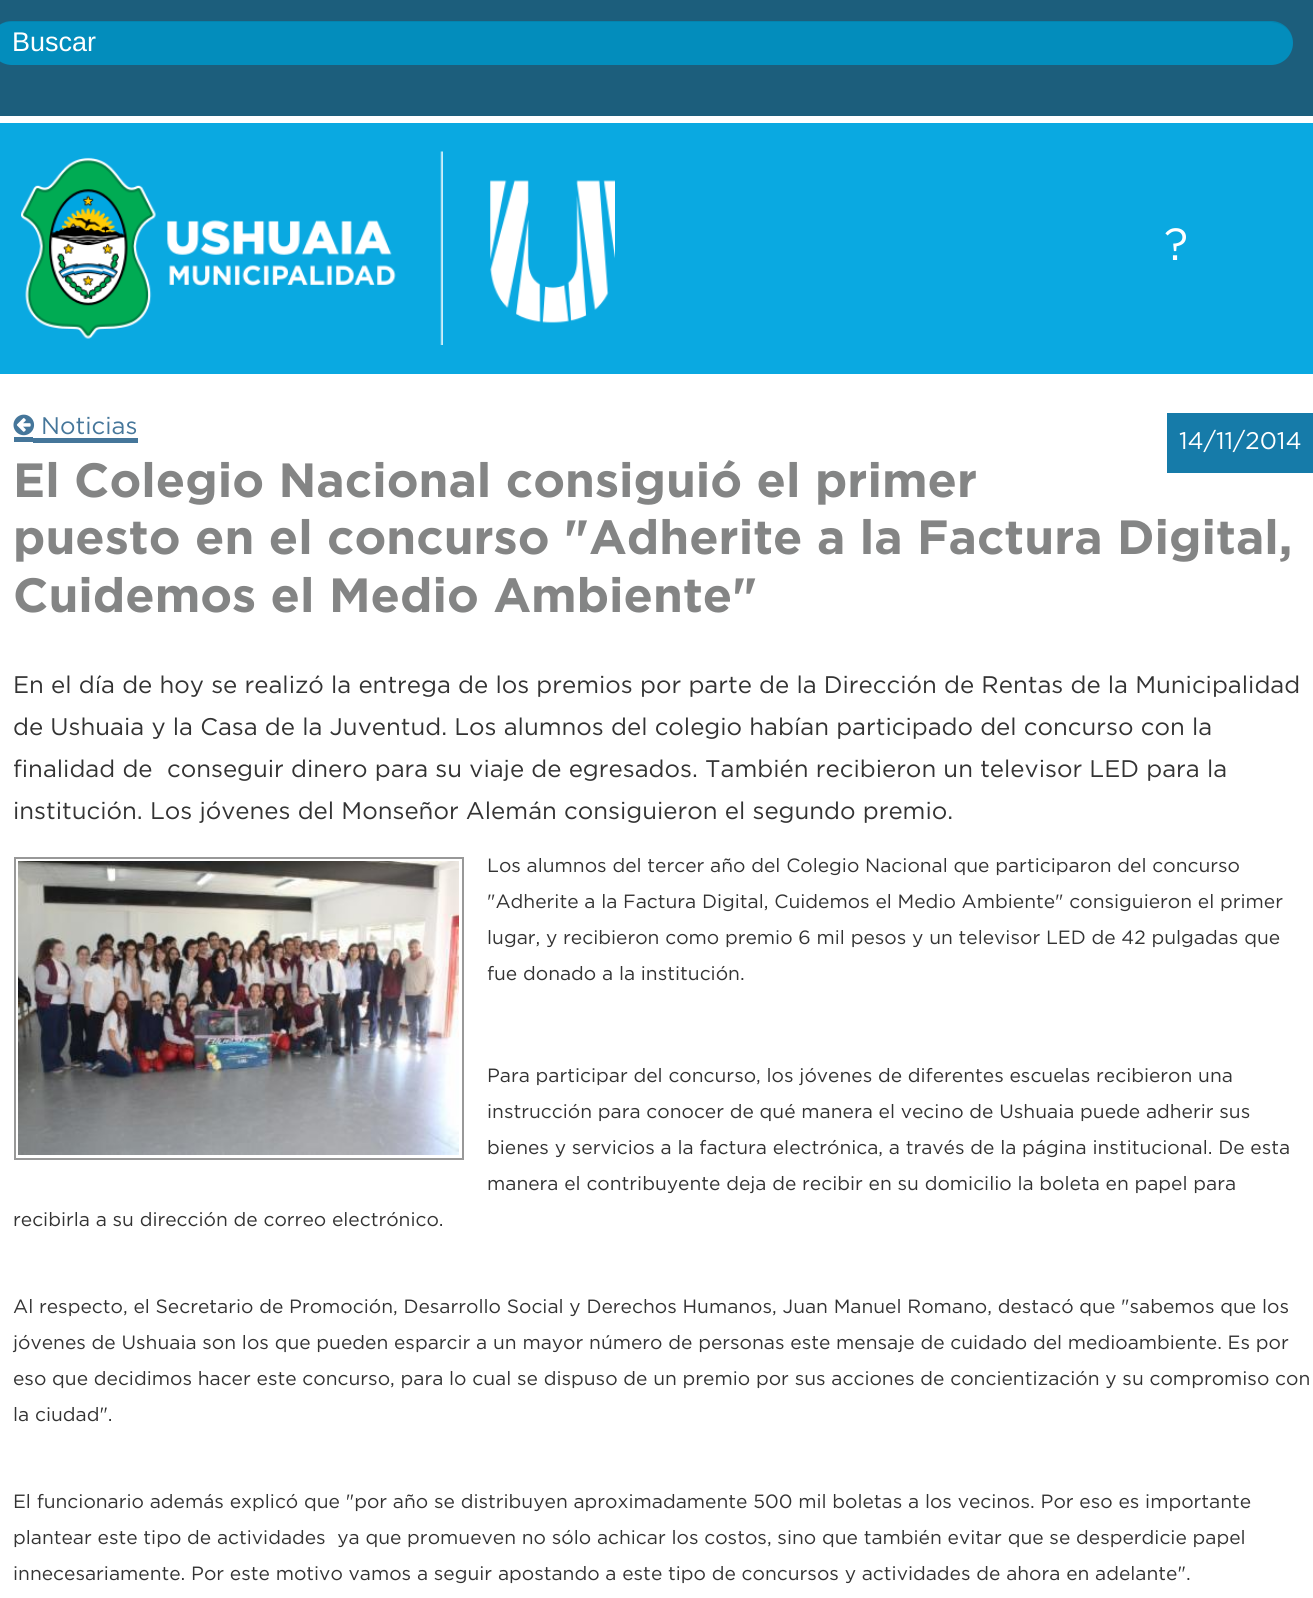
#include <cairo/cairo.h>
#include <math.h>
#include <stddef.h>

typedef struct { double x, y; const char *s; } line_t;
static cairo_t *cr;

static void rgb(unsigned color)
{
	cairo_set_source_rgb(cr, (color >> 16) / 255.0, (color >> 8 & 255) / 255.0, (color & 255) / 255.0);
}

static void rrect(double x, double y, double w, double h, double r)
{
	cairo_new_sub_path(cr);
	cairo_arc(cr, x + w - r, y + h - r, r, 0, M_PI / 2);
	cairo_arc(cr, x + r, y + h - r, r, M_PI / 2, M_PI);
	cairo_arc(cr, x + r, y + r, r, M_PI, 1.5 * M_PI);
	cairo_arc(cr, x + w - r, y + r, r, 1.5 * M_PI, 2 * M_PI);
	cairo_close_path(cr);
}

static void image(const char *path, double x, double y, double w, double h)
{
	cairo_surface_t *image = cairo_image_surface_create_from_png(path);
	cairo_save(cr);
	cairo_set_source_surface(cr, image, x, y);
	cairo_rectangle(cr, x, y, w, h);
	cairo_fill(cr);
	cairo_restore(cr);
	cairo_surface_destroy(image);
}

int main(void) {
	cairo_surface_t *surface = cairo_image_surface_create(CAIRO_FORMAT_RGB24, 1313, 1598);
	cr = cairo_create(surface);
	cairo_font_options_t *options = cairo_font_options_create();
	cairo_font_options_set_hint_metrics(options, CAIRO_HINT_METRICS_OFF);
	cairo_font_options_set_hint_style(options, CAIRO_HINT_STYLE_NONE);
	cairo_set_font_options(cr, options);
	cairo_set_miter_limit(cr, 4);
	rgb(0xffffff);
	cairo_paint(cr);
	rgb(0x1c5e7c);
	cairo_rectangle(cr, 0, 0, 1313, 116);
	cairo_fill(cr);
	rgb(0x038dbc);
	rrect(-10, 21, 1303, 44, 22);
	cairo_fill(cr);
	cairo_set_source_rgba(cr, 0, 0, 0, 0.07);
	cairo_new_path(cr);
	cairo_move_to(cr, 11, 22);
	cairo_line_to(cr, 1271, 22);
	cairo_line_to(cr, 1276, 23);
	cairo_curve_to(cr, 1289, 26, 1295, 38, 1292, 49);
	cairo_curve_to(cr, 1296, 35, 1285, 21, 1271, 21);
	cairo_line_to(cr, 12, 21);
	cairo_curve_to(cr, 0, 21, -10, 31, -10, 43);
	cairo_curve_to(cr, -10, 33, -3, 22, 11, 22);
	cairo_close_path(cr);
	cairo_fill(cr);
	rgb(0x0aa9e1);
	cairo_rectangle(cr, 0, 123, 1313, 251);
	cairo_fill(cr);
	image("img/1.png", 21, 151, 594, 194);
	rgb(0x45769a);
	cairo_rectangle(cr, 14, 437, 19, 5);
	cairo_fill(cr);
	cairo_rectangle(cr, 33, 438, 105, 5);
	cairo_fill(cr);
	image("img/2.png", 13, 414, 22, 22);
	rgb(0x167ba9);
	cairo_rectangle(cr, 1167, 413, 146, 60);
	cairo_fill(cr);
	cairo_rectangle(cr, 15, 858, 448, 301);
	rgb(0x989898);
	cairo_stroke(cr);
	image("img/3.png", 18, 861, 441, 294);
	cairo_select_font_face(cr, "Liberation Sans", CAIRO_FONT_SLANT_NORMAL, CAIRO_FONT_WEIGHT_NORMAL);
	cairo_set_font_size(cr, 27);
	rgb(0xffffff);
	cairo_move_to(cr, 12, 51);
	cairo_show_text(cr, "Buscar");
	cairo_select_font_face(cr, "Gotham", CAIRO_FONT_SLANT_NORMAL, CAIRO_FONT_WEIGHT_NORMAL);
	cairo_set_font_size(cr, 45);
	cairo_move_to(cr, 1164, 260);
	cairo_show_text(cr, "?");
	cairo_set_font_size(cr, 24);
	rgb(0x45769a);
	cairo_move_to(cr, 41, 434);
	cairo_show_text(cr, "Noticias");
	rgb(0xffffff);
	cairo_move_to(cr, 1179, 449);
	cairo_show_text(cr, "14/11/2014");
	cairo_select_font_face(cr, "Gotham", CAIRO_FONT_SLANT_NORMAL, CAIRO_FONT_WEIGHT_BOLD);
	cairo_set_font_size(cr, 48);
	rgb(0x848585);
	{
		static const line_t items[] = {
			{13, 497, "El Colegio Nacional consiguió el primer"},
			{13, 554, "puesto en el concurso \"Adherite a la Factura Digital,"},
			{13, 612, "Cuidemos el Medio Ambiente\""},
		};
		for (size_t i = 0; i < sizeof items / sizeof *items; i++) {
			cairo_move_to(cr, items[i].x, items[i].y);
			cairo_show_text(cr, items[i].s);
		}
	}
	cairo_select_font_face(cr, "Gotham", CAIRO_FONT_SLANT_NORMAL, CAIRO_FONT_WEIGHT_NORMAL);
	cairo_set_font_size(cr, 24);
	rgb(0x333333);
	{
		static const line_t items[] = {
			{13, 693, "En el día de hoy se realizó la entrega de los premios por parte de la Dirección de Rentas de la Municipalidad"},
			{13, 735, "de Ushuaia y la Casa de la Juventud. Los alumnos del colegio habían participado del concurso con la"},
			{13, 777, "finalidad de  conseguir dinero para su viaje de egresados. También recibieron un televisor LED para la"},
			{13, 819, "institución. Los jóvenes del Monseñor Alemán consiguieron el segundo premio."},
		};
		for (size_t i = 0; i < sizeof items / sizeof *items; i++) {
			cairo_move_to(cr, items[i].x, items[i].y);
			cairo_show_text(cr, items[i].s);
		}
	}
	cairo_set_font_size(cr, 19.2);
	{
		static const line_t items[] = {
			{487, 872, "Los alumnos del tercer año del Colegio Nacional que participaron del concurso"},
			{487, 908, "\"Adherite a la Factura Digital, Cuidemos el Medio Ambiente\" consiguieron el primer"},
			{487, 944, "lugar, y recibieron como premio 6 mil pesos y un televisor LED de 42 pulgadas que"},
			{487, 980, "fue donado a la institución."},
			{487, 1082, "Para participar del concurso, los jóvenes de diferentes escuelas recibieron una"},
			{487, 1118, "instrucción para conocer de qué manera el vecino de Ushuaia puede adherir sus"},
			{487, 1154, "bienes y servicios a la factura electrónica, a través de la página institucional. De esta"},
			{487, 1190, "manera el contribuyente deja de recibir en su domicilio la boleta en papel para"},
			{13, 1226, "recibirla a su dirección de correo electrónico."},
			{13, 1313, "Al respecto, el Secretario de Promoción, Desarrollo Social y Derechos Humanos, Juan Manuel Romano, destacó que \"sabemos que los"},
			{13, 1349, "jóvenes de Ushuaia son los que pueden esparcir a un mayor número de personas este mensaje de cuidado del medioambiente. Es por"},
			{13, 1385, "eso que decidimos hacer este concurso, para lo cual se dispuso de un premio por sus acciones de concientización y su compromiso con"},
			{13, 1421, "la ciudad\"."},
			{13, 1508, "El funcionario además explicó que \"por año se distribuyen aproximadamente 500 mil boletas a los vecinos. Por eso es importante"},
			{13, 1544, "plantear este tipo de actividades  ya que promueven no sólo achicar los costos, sino que también evitar que se desperdicie papel"},
			{13, 1580, "innecesariamente. Por este motivo vamos a seguir apostando a este tipo de concursos y actividades de ahora en adelante\"."},
		};
		for (size_t i = 0; i < sizeof items / sizeof *items; i++) {
			cairo_move_to(cr, items[i].x, items[i].y);
			cairo_show_text(cr, items[i].s);
		}
	}
	cairo_surface_write_to_png(surface, "page.png");
	cairo_font_options_destroy(options);
	cairo_destroy(cr);
	cairo_surface_destroy(surface);
	return 0;
}
